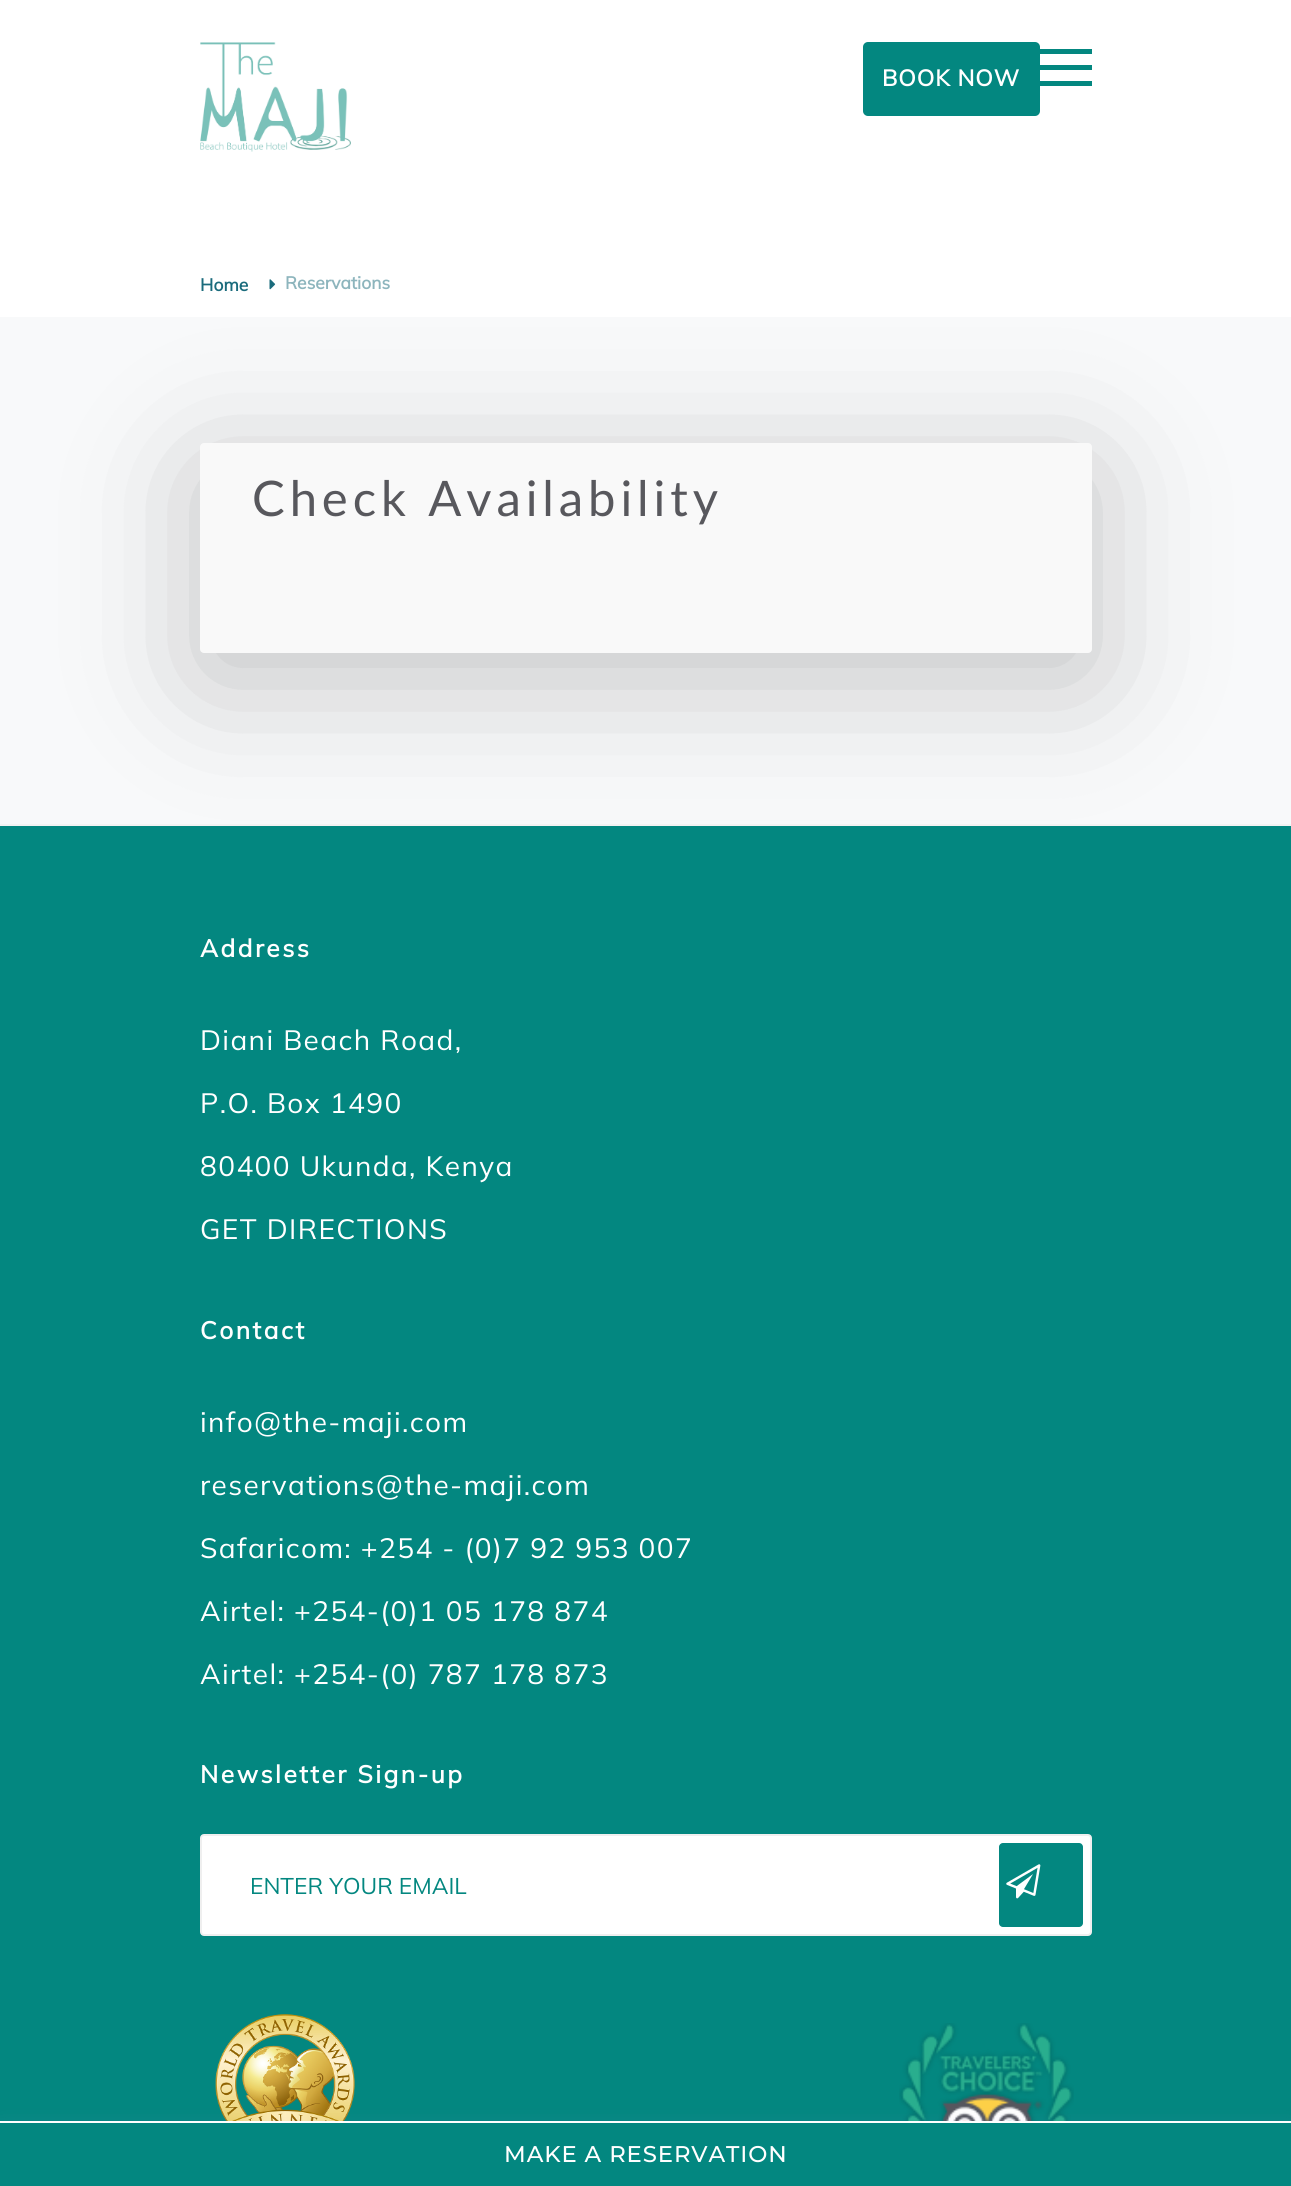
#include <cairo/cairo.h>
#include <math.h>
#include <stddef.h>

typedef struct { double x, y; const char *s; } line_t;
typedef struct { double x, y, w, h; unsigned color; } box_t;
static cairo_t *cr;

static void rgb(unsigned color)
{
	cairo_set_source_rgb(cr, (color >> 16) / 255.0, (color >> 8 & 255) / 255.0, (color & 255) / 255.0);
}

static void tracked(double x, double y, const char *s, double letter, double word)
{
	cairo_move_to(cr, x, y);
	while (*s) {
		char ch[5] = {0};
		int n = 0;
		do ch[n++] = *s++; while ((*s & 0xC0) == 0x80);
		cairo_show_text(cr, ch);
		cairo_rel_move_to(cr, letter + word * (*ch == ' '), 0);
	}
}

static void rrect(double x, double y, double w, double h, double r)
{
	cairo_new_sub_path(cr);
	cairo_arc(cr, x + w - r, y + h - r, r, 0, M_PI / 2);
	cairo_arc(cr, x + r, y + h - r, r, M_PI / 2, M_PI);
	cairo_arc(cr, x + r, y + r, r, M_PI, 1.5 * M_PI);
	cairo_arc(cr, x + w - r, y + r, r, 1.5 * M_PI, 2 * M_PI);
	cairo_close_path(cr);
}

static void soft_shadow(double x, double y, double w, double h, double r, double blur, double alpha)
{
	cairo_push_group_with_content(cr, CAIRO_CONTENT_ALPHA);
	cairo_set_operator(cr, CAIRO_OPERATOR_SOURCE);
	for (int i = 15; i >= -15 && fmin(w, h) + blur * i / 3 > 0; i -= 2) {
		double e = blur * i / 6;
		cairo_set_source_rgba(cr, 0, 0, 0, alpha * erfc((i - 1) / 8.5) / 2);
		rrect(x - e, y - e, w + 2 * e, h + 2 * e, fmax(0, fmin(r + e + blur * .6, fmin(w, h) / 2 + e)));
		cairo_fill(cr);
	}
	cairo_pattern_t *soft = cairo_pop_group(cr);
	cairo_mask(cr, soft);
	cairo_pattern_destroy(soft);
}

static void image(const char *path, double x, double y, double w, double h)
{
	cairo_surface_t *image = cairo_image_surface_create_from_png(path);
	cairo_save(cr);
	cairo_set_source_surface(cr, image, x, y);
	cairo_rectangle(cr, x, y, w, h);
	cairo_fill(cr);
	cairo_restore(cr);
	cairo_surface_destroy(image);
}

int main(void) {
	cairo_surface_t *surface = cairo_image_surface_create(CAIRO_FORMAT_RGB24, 1291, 2186);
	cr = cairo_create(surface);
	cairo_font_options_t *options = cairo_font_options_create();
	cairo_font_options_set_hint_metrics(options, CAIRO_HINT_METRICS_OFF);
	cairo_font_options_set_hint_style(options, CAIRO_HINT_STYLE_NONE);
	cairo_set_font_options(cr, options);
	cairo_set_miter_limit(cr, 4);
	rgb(0xffffff);
	cairo_paint(cr);
	image("img/1.png", 200, 42, 151, 110);
	rgb(0x038780);
	rrect(863, 42, 177, 74, 5);
	cairo_fill(cr);
	{
		static const box_t items[] = {
			{1040, 49, 52, 5, 0x038780},
			{1040, 65, 52, 5, 0x038780},
			{1040, 81, 52, 5, 0x038780},
		};
		for (size_t i = 0; i < sizeof items / sizeof *items; i++) {
			rgb(items[i].color);
			cairo_rectangle(cr, items[i].x, items[i].y, items[i].w, items[i].h);
			cairo_fill(cr);
		}
	}
	image("img/2.png", 269, 279, 7, 11);
	{
		static const box_t items[] = {
			{0, 317, 1291, 507, 0xf8f9fa},
			{0, 826, 1291, 1295, 0x038780},
			{0, 824, 1291, 2, 0xf2f2f2},
		};
		for (size_t i = 0; i < sizeof items / sizeof *items; i++) {
			rgb(items[i].color);
			cairo_rectangle(cr, items[i].x, items[i].y, items[i].w, items[i].h);
			cairo_fill(cr);
		}
	}
	rgb(0x000000);
	soft_shadow(200, 469, 892, 210, 4, 65.5, 0.22);
	rgb(0xf9f9f9);
	rrect(200, 443, 892, 210, 4);
	cairo_fill(cr);
	image("img/4.png", 215, 2014, 140, 107);
	image("img/5.png", 899, 2023, 175, 98);
	rgb(0xb57ffa);
	soft_shadow(0, 2125, 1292, 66, 0, 9.5, 0.1);
	rgb(0xffffff);
	cairo_rectangle(cr, 0, 2121, 1291, 2);
	cairo_fill(cr);
	rgb(0x038780);
	cairo_rectangle(cr, 0, 2123, 1291, 63);
	cairo_fill(cr);
	rgb(0xffffff);
	rrect(201, 1835, 890, 100, 3);
	cairo_fill_preserve(cr);
	rgb(0xefefef);
	cairo_stroke(cr);
	rgb(0x038780);
	rrect(999, 1843, 84, 84, 4);
	cairo_fill(cr);
	image("img/3.png", 1006, 1864, 35, 35);
	cairo_select_font_face(cr, "Mulish", CAIRO_FONT_SLANT_NORMAL, CAIRO_FONT_WEIGHT_BOLD);
	cairo_set_font_size(cr, 22.75);
	rgb(0xffffff);
	tracked(882, 86, "BOOK NOW", 0.9, 0);
	cairo_set_font_size(cr, 17.5);
	rgb(0x1a6b7c);
	cairo_move_to(cr, 200, 291);
	cairo_show_text(cr, "Home");
	rgb(0x8db5bd);
	cairo_move_to(cr, 285, 289);
	cairo_show_text(cr, "Reservations");
	cairo_select_font_face(cr, "Lato", CAIRO_FONT_SLANT_NORMAL, CAIRO_FONT_WEIGHT_NORMAL);
	cairo_set_font_size(cr, 49);
	rgb(0x58585d);
	tracked(252, 516, "Check Availability", 4.9, 0);
	cairo_select_font_face(cr, "Montserrat Medium", CAIRO_FONT_SLANT_NORMAL, CAIRO_FONT_WEIGHT_NORMAL);
	cairo_set_font_size(cr, 22.75);
	rgb(0xffffff);
	tracked(504, 2162, "MAKE A RESERVATION", 0.9, 0);
	cairo_select_font_face(cr, "Mulish", CAIRO_FONT_SLANT_NORMAL, CAIRO_FONT_WEIGHT_BOLD);
	cairo_set_font_size(cr, 24.5);
	tracked(200, 957, "Address", 2.5, 0);
	cairo_select_font_face(cr, "Mulish", CAIRO_FONT_SLANT_NORMAL, CAIRO_FONT_WEIGHT_NORMAL);
	cairo_set_font_size(cr, 28);
	{
		static const line_t items[] = {
			{200, 1050, "Diani Beach Road,"},
			{200, 1113, "P.O. Box 1490"},
			{200, 1176, "80400 Ukunda, Kenya"},
			{200, 1239, "GET DIRECTIONS"},
		};
		for (size_t i = 0; i < sizeof items / sizeof *items; i++) {
			tracked(items[i].x, items[i].y, items[i].s, 1.4, 0);
		}
	}
	cairo_select_font_face(cr, "Mulish", CAIRO_FONT_SLANT_NORMAL, CAIRO_FONT_WEIGHT_BOLD);
	cairo_set_font_size(cr, 24.5);
	tracked(200, 1339, "Contact", 2.5, 0);
	cairo_select_font_face(cr, "Mulish", CAIRO_FONT_SLANT_NORMAL, CAIRO_FONT_WEIGHT_NORMAL);
	cairo_set_font_size(cr, 28);
	{
		static const line_t items[] = {
			{200, 1432, "info@the-maji.com"},
			{200, 1495, "reservations@the-maji.com"},
			{200, 1558, "Safaricom: +254 - (0)7 92 953 007"},
			{200, 1621, "Airtel: +254-(0)1 05 178 874"},
			{200, 1684, "Airtel: +254-(0) 787 178 873"},
		};
		for (size_t i = 0; i < sizeof items / sizeof *items; i++) {
			tracked(items[i].x, items[i].y, items[i].s, 1.4, 0);
		}
	}
	cairo_select_font_face(cr, "Mulish", CAIRO_FONT_SLANT_NORMAL, CAIRO_FONT_WEIGHT_BOLD);
	cairo_set_font_size(cr, 24.5);
	tracked(200, 1783, "Newsletter Sign-up", 2.5, 0);
	cairo_select_font_face(cr, "Mulish", CAIRO_FONT_SLANT_NORMAL, CAIRO_FONT_WEIGHT_NORMAL);
	cairo_set_font_size(cr, 22.75);
	rgb(0x038780);
	cairo_move_to(cr, 250, 1894);
	cairo_show_text(cr, "ENTER YOUR EMAIL");
	cairo_surface_write_to_png(surface, "page.png");
	cairo_font_options_destroy(options);
	cairo_destroy(cr);
	cairo_surface_destroy(surface);
	return 0;
}
